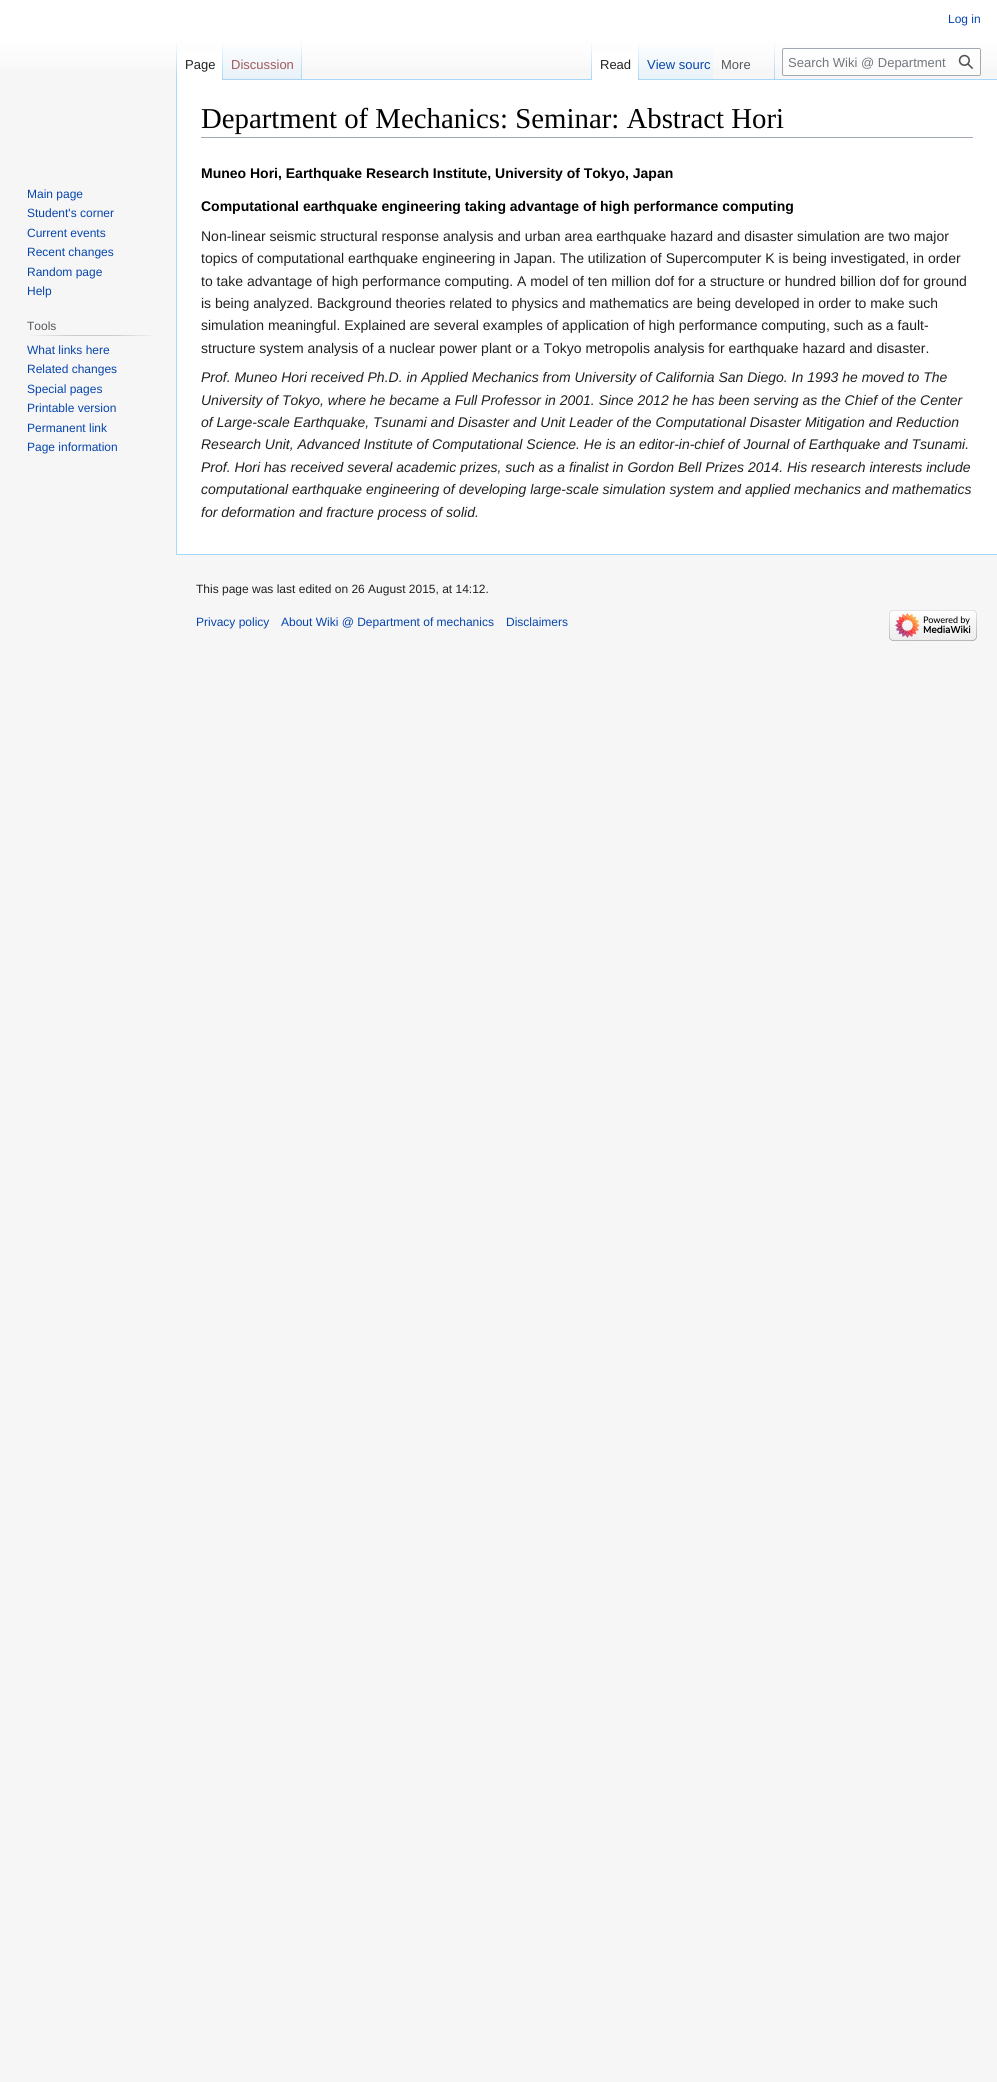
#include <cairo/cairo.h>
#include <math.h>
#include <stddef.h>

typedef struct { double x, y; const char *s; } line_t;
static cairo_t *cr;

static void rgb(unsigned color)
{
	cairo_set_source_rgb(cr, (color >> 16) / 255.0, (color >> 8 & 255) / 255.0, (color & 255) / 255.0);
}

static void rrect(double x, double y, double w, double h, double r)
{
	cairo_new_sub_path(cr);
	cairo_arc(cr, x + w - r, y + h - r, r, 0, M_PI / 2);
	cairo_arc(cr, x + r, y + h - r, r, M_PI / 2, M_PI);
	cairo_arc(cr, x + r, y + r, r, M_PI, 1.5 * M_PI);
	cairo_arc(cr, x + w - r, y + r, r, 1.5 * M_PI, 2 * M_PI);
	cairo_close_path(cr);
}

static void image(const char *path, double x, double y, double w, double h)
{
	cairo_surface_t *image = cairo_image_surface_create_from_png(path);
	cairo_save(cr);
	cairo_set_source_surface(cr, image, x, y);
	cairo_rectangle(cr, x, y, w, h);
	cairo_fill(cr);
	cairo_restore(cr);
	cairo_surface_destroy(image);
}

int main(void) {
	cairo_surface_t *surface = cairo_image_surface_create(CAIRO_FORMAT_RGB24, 997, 2082);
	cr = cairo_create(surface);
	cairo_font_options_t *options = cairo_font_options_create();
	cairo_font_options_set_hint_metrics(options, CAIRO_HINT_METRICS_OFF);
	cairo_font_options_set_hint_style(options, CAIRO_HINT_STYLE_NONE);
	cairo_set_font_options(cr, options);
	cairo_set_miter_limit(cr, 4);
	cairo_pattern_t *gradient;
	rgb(0xf6f6f6);
	cairo_paint(cr);
	gradient = cairo_pattern_create_linear(499, 0, 499, 80);
	cairo_pattern_add_color_stop_rgba(gradient, 0.5, 1, 1, 1, 1);
	cairo_pattern_add_color_stop_rgba(gradient, 1, 0.965, 0.965, 0.965, 1);
	cairo_set_source(cr, gradient);
	cairo_pattern_destroy(gradient);
	cairo_rectangle(cr, 0, 0, 997, 69);
	cairo_fill(cr);
	rgb(0xa7d7f9);
	cairo_rectangle(cr, 176, 554, 821, 1);
	cairo_fill(cr);
	cairo_rectangle(cr, 176, 79, 1, 476);
	cairo_fill(cr);
	gradient = cairo_pattern_create_linear(177, 40, 177, 80);
	cairo_pattern_add_color_stop_rgba(gradient, 0, 0.655, 0.843, 0.976, 0);
	cairo_pattern_add_color_stop_rgba(gradient, 1, 0.655, 0.843, 0.976, 1);
	cairo_set_source(cr, gradient);
	cairo_pattern_destroy(gradient);
	cairo_rectangle(cr, 176, 40, 1, 40);
	cairo_fill(cr);
	rgb(0xffffff);
	cairo_rectangle(cr, 177, 51, 45, 29);
	cairo_fill(cr);
	gradient = cairo_pattern_create_linear(223, 40, 223, 80);
	cairo_pattern_add_color_stop_rgba(gradient, 0, 1, 1, 1, 1);
	cairo_pattern_add_color_stop_rgba(gradient, 1, 0.655, 0.843, 0.976, 1);
	cairo_set_source(cr, gradient);
	cairo_pattern_destroy(gradient);
	cairo_rectangle(cr, 222, 40, 1, 40);
	cairo_fill(cr);
	gradient = cairo_pattern_create_linear(263, 80, 263, 40);
	cairo_pattern_add_color_stop_rgba(gradient, 0, 0.467, 0.757, 0.965, 1);
	cairo_pattern_add_color_stop_rgba(gradient, 0.03, 0.91, 0.949, 0.973, 1);
	cairo_pattern_add_color_stop_rgba(gradient, 1, 1, 1, 1, 1);
	cairo_set_source(cr, gradient);
	cairo_pattern_destroy(gradient);
	cairo_rectangle(cr, 223, 46, 79, 34);
	cairo_fill(cr);
	gradient = cairo_pattern_create_linear(302, 40, 302, 80);
	cairo_pattern_add_color_stop_rgba(gradient, 0, 0.655, 0.843, 0.976, 0);
	cairo_pattern_add_color_stop_rgba(gradient, 1, 0.655, 0.843, 0.976, 1);
	cairo_set_source(cr, gradient);
	cairo_pattern_destroy(gradient);
	cairo_rectangle(cr, 301, 40, 1, 40);
	cairo_fill(cr);
	rgb(0xa7d7f9);
	cairo_rectangle(cr, 302, 79, 695, 1);
	cairo_fill(cr);
	gradient = cairo_pattern_create_linear(592, 40, 592, 80);
	cairo_pattern_add_color_stop_rgba(gradient, 0, 0.655, 0.843, 0.976, 0);
	cairo_pattern_add_color_stop_rgba(gradient, 1, 0.655, 0.843, 0.976, 1);
	cairo_set_source(cr, gradient);
	cairo_pattern_destroy(gradient);
	cairo_rectangle(cr, 591, 40, 1, 40);
	cairo_fill(cr);
	rgb(0xffffff);
	cairo_rectangle(cr, 592, 51, 46, 29);
	cairo_fill(cr);
	gradient = cairo_pattern_create_linear(639, 40, 639, 80);
	cairo_pattern_add_color_stop_rgba(gradient, 0, 1, 1, 1, 1);
	cairo_pattern_add_color_stop_rgba(gradient, 1, 0.655, 0.843, 0.976, 1);
	cairo_set_source(cr, gradient);
	cairo_pattern_destroy(gradient);
	cairo_rectangle(cr, 638, 40, 1, 40);
	cairo_fill(cr);
	gradient = cairo_pattern_create_linear(676, 80, 676, 40);
	cairo_pattern_add_color_stop_rgba(gradient, 0, 0.467, 0.757, 0.965, 1);
	cairo_pattern_add_color_stop_rgba(gradient, 0.03, 0.91, 0.949, 0.973, 1);
	cairo_pattern_add_color_stop_rgba(gradient, 1, 1, 1, 1, 1);
	cairo_set_source(cr, gradient);
	cairo_pattern_destroy(gradient);
	cairo_rectangle(cr, 639, 46, 74, 33);
	cairo_fill(cr);
	gradient = cairo_pattern_create_linear(775, 40, 775, 80);
	cairo_pattern_add_color_stop_rgba(gradient, 0, 0.655, 0.843, 0.976, 0);
	cairo_pattern_add_color_stop_rgba(gradient, 1, 0.655, 0.843, 0.976, 1);
	cairo_set_source(cr, gradient);
	cairo_pattern_destroy(gradient);
	cairo_rectangle(cr, 774, 40, 1, 40);
	cairo_fill(cr);
	cairo_set_source_rgba(cr, 1, 1, 1, 0.5);
	rrect(782.5, 48.5, 198, 27, 1.5);
	cairo_fill_preserve(cr);
	rgb(0xa2a9b1);
	cairo_set_line_width(cr, 1);
	cairo_stroke(cr);
	image("img/1.png", 958, 54, 15, 15);
	gradient = cairo_pattern_create_linear(27, 336, 158, 336);
	cairo_pattern_add_color_stop_rgba(gradient, 0, 0.965, 0.965, 0.965, 1);
	cairo_pattern_add_color_stop_rgba(gradient, 0.33, 0.784, 0.8, 0.82, 1);
	cairo_pattern_add_color_stop_rgba(gradient, 0.66, 0.784, 0.8, 0.82, 1);
	cairo_pattern_add_color_stop_rgba(gradient, 1, 0.965, 0.965, 0.965, 1);
	cairo_set_source(cr, gradient);
	cairo_pattern_destroy(gradient);
	cairo_rectangle(cr, 27, 335, 131, 1);
	cairo_fill(cr);
	rgb(0xffffff);
	cairo_rectangle(cr, 177, 80, 820, 474);
	cairo_fill(cr);
	rgb(0xa2a9b1);
	cairo_rectangle(cr, 201, 137, 772, 1);
	cairo_fill(cr);
	image("img/2.png", 889, 610, 88, 31);
	cairo_select_font_face(cr, "Liberation Sans", CAIRO_FONT_SLANT_NORMAL, CAIRO_FONT_WEIGHT_NORMAL);
	cairo_set_font_size(cr, 12);
	rgb(0x0645ad);
	cairo_move_to(cr, 948, 23);
	cairo_show_text(cr, "Log in");
	cairo_set_font_size(cr, 13);
	rgb(0x202122);
	cairo_move_to(cr, 185, 69);
	cairo_show_text(cr, "Page");
	rgb(0xa55858);
	cairo_move_to(cr, 231, 69);
	cairo_show_text(cr, "Discussion");
	rgb(0x202122);
	cairo_move_to(cr, 600, 69);
	cairo_show_text(cr, "Read");
	rgb(0x0645ad);
	cairo_move_to(cr, 647, 69);
	cairo_show_text(cr, "View sourc");
	rgb(0x54595d);
	cairo_move_to(cr, 721, 69);
	cairo_show_text(cr, "More");
	rgb(0x72777d);
	cairo_move_to(cr, 788, 67);
	cairo_show_text(cr, "Search Wiki @ Department");
	cairo_set_font_size(cr, 12);
	rgb(0x0645ad);
	{
		static const line_t items[] = {
			{27, 198, "Main page"},
			{27, 217, "Student's corner"},
			{27, 237, "Current events"},
			{27, 256, "Recent changes"},
			{27, 276, "Random page"},
			{27, 295, "Help"},
		};
		for (size_t i = 0; i < sizeof items / sizeof *items; i++) {
			cairo_move_to(cr, items[i].x, items[i].y);
			cairo_show_text(cr, items[i].s);
		}
	}
	rgb(0x54595d);
	cairo_move_to(cr, 27, 330);
	cairo_show_text(cr, "Tools");
	rgb(0x0645ad);
	{
		static const line_t items[] = {
			{27, 354, "What links here"},
			{27, 373, "Related changes"},
			{27, 393, "Special pages"},
			{27, 412, "Printable version"},
			{27, 432, "Permanent link"},
			{27, 451, "Page information"},
		};
		for (size_t i = 0; i < sizeof items / sizeof *items; i++) {
			cairo_move_to(cr, items[i].x, items[i].y);
			cairo_show_text(cr, items[i].s);
		}
	}
	cairo_select_font_face(cr, "Liberation Serif", CAIRO_FONT_SLANT_NORMAL, CAIRO_FONT_WEIGHT_NORMAL);
	cairo_set_font_size(cr, 28.8);
	rgb(0x000000);
	cairo_move_to(cr, 201, 128);
	cairo_show_text(cr, "Department of Mechanics: Seminar: Abstract Hori");
	cairo_select_font_face(cr, "Liberation Sans", CAIRO_FONT_SLANT_NORMAL, CAIRO_FONT_WEIGHT_BOLD);
	cairo_set_font_size(cr, 14);
	cairo_move_to(cr, 201, 178);
	cairo_show_text(cr, "Muneo Hori, Earthquake Research Institute, University of Tokyo, Japan");
	cairo_move_to(cr, 201, 211);
	cairo_show_text(cr, "Computational earthquake engineering taking advantage of high performance computing");
	cairo_select_font_face(cr, "Liberation Sans", CAIRO_FONT_SLANT_NORMAL, CAIRO_FONT_WEIGHT_NORMAL);
	rgb(0x202122);
	{
		static const line_t items[] = {
			{201, 241, "Non-linear seismic structural response analysis and urban area earthquake hazard and disaster simulation are two major"},
			{201, 263, "topics of computational earthquake engineering in Japan. The utilization of Supercomputer K is being investigated, in order"},
			{201, 286, "to take advantage of high performance computing. A model of ten million dof for a structure or hundred billion dof for ground"},
			{201, 308, "is being analyzed. Background theories related to physics and mathematics are being developed in order to make such"},
			{201, 330, "simulation meaningful. Explained are several examples of application of high performance computing, such as a fault-"},
			{201, 353, "structure system analysis of a nuclear power plant or a Tokyo metropolis analysis for earthquake hazard and disaster."},
		};
		for (size_t i = 0; i < sizeof items / sizeof *items; i++) {
			cairo_move_to(cr, items[i].x, items[i].y);
			cairo_show_text(cr, items[i].s);
		}
	}
	cairo_select_font_face(cr, "Liberation Sans", CAIRO_FONT_SLANT_ITALIC, CAIRO_FONT_WEIGHT_NORMAL);
	{
		static const line_t items[] = {
			{201, 382, "Prof. Muneo Hori received Ph.D. in Applied Mechanics from University of California San Diego. In 1993 he moved to The"},
			{201, 405, "University of Tokyo, where he became a Full Professor in 2001. Since 2012 he has been serving as the Chief of the Center"},
			{201, 427, "of Large-scale Earthquake, Tsunami and Disaster and Unit Leader of the Computational Disaster Mitigation and Reduction"},
			{201, 449, "Research Unit, Advanced Institute of Computational Science. He is an editor-in-chief of Journal of Earthquake and Tsunami."},
			{201, 472, "Prof. Hori has received several academic prizes, such as a finalist in Gordon Bell Prizes 2014. His research interests include"},
			{201, 494, "computational earthquake engineering of developing large-scale simulation system and applied mechanics and mathematics"},
			{201, 517, "for deformation and fracture process of solid."},
		};
		for (size_t i = 0; i < sizeof items / sizeof *items; i++) {
			cairo_move_to(cr, items[i].x, items[i].y);
			cairo_show_text(cr, items[i].s);
		}
	}
	cairo_select_font_face(cr, "Liberation Sans", CAIRO_FONT_SLANT_NORMAL, CAIRO_FONT_WEIGHT_NORMAL);
	cairo_set_font_size(cr, 12);
	cairo_move_to(cr, 196, 593);
	cairo_show_text(cr, "This page was last edited on 26 August 2015, at 14:12.");
	rgb(0x0645ad);
	{
		static const line_t items[] = {
			{196, 626, "Privacy policy"},
			{281, 626, "About Wiki @ Department of mechanics"},
			{506, 626, "Disclaimers"},
		};
		for (size_t i = 0; i < sizeof items / sizeof *items; i++) {
			cairo_move_to(cr, items[i].x, items[i].y);
			cairo_show_text(cr, items[i].s);
		}
	}
	cairo_surface_write_to_png(surface, "page.png");
	cairo_font_options_destroy(options);
	cairo_destroy(cr);
	cairo_surface_destroy(surface);
	return 0;
}
